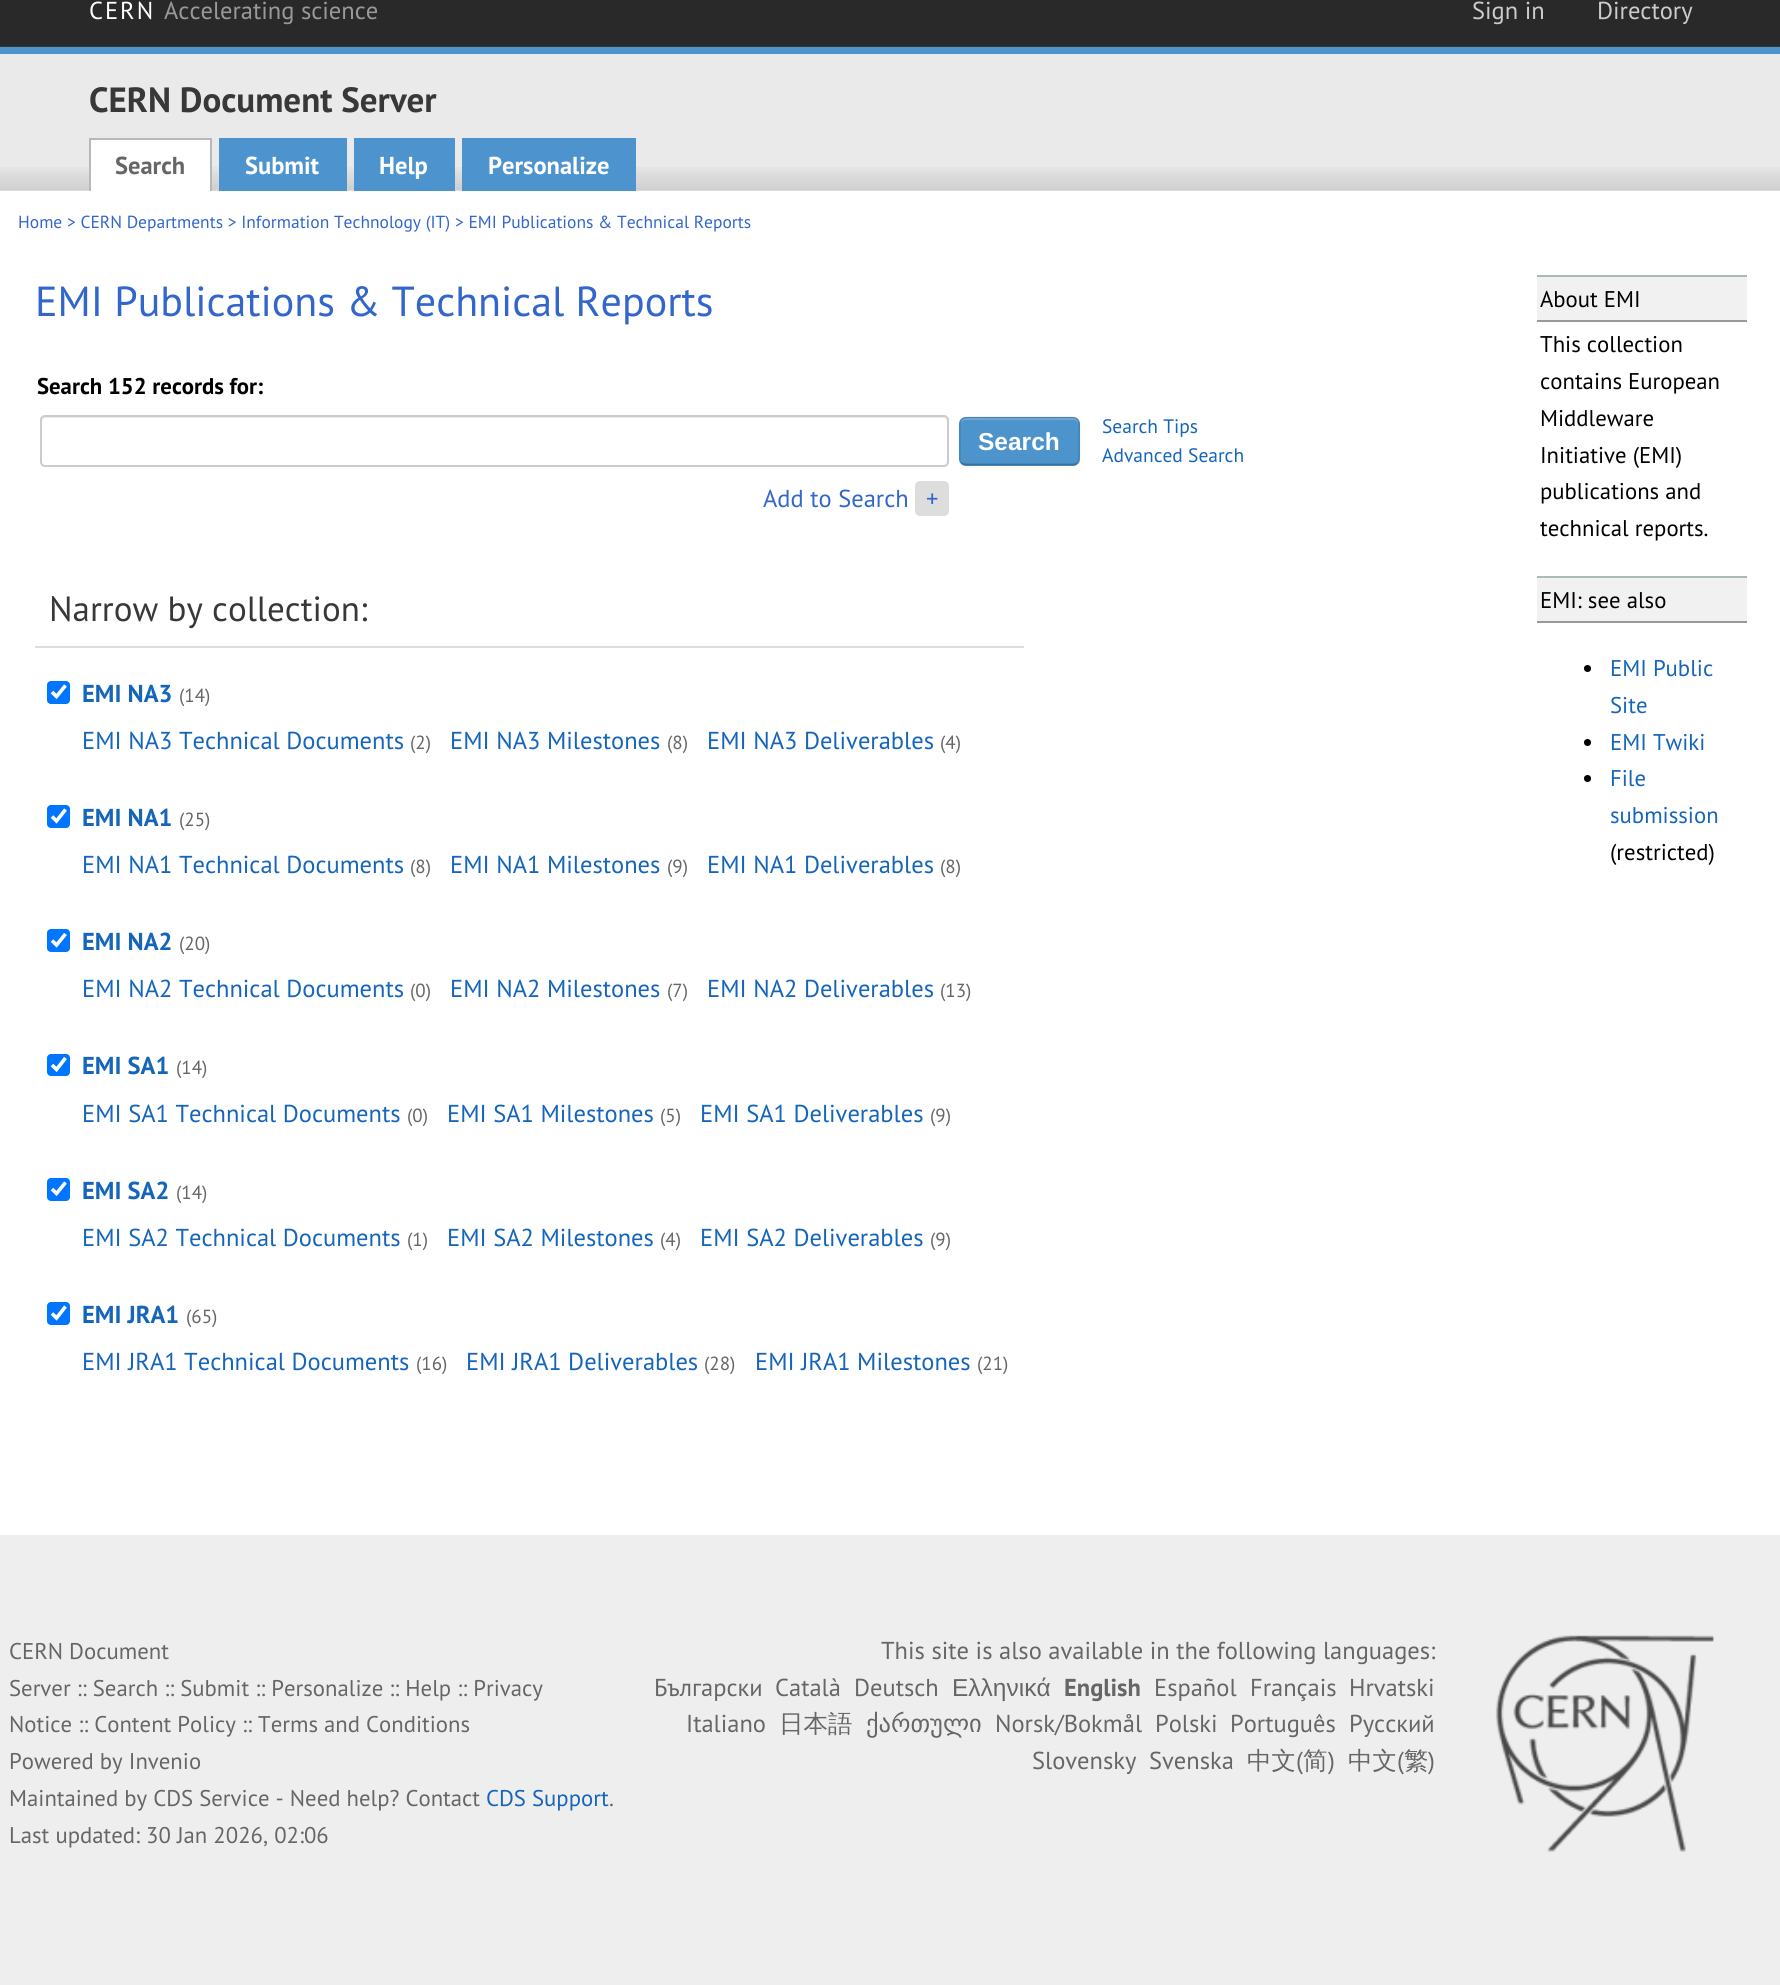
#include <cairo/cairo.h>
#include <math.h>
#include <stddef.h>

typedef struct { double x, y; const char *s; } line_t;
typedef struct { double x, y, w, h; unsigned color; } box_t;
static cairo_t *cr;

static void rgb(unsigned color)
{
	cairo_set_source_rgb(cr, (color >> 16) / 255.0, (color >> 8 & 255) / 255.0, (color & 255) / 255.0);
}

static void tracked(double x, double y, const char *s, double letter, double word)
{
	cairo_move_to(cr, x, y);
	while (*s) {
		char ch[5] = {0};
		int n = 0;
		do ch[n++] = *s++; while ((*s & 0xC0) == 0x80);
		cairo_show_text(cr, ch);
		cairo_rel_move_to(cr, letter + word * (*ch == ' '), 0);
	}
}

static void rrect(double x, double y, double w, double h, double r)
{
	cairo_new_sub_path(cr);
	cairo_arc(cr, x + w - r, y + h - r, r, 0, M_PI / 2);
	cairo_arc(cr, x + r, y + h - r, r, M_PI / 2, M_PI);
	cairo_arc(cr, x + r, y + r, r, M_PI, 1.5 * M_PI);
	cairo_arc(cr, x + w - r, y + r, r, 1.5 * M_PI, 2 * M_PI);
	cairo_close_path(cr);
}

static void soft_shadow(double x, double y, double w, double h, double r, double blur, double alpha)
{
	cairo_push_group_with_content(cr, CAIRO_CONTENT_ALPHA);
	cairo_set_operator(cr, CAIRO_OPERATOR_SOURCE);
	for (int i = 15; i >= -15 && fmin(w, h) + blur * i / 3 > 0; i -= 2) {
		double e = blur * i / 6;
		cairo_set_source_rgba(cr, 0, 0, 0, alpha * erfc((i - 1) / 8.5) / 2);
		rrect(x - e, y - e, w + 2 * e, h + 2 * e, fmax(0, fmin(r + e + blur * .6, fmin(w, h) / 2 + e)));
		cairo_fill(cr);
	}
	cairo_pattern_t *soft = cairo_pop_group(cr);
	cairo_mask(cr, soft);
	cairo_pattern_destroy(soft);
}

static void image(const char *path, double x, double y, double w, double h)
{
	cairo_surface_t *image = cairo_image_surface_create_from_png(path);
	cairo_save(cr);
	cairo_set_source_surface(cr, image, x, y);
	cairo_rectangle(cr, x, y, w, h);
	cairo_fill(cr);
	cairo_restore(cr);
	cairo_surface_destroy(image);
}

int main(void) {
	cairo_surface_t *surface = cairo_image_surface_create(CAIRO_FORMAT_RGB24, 1780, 1985);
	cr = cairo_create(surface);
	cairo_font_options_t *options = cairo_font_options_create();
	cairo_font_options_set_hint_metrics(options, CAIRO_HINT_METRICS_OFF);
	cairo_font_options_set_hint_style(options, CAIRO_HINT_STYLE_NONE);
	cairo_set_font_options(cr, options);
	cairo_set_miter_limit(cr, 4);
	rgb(0xffffff);
	cairo_paint(cr);
	{
		static const box_t items[] = {
			{0, 0, 1780, 46, 0x292929},
			{0, 46, 1780, 1, 0x353535},
			{0, 54, 1780, 137, 0xeaeaea},
		};
		for (size_t i = 0; i < sizeof items / sizeof *items; i++) {
			rgb(items[i].color);
			cairo_rectangle(cr, items[i].x, items[i].y, items[i].w, items[i].h);
			cairo_fill(cr);
		}
	}
	image("img/1.png", 0, 167, 1780, 24);
	{
		static const box_t items[] = {
			{0, 47, 1780, 7, 0x4d94cc},
			{91, 140, 119, 51, 0xffffff},
			{89, 138, 123, 2, 0xb8b8b8},
			{210, 138, 2, 53, 0xb8b8b8},
			{89, 138, 2, 53, 0xb8b8b8},
			{219, 138, 128, 53, 0x4d94ce},
			{354, 138, 101, 53, 0x4d94ce},
			{462, 138, 174, 53, 0x4d94ce},
		};
		for (size_t i = 0; i < sizeof items / sizeof *items; i++) {
			rgb(items[i].color);
			cairo_rectangle(cr, items[i].x, items[i].y, items[i].w, items[i].h);
			cairo_fill(cr);
		}
	}
	rgb(0xececec);
	cairo_new_path(cr);
	cairo_move_to(cr, 46, 418);
	cairo_line_to(cr, 943, 418);
	cairo_curve_to(cr, 945, 418, 947, 420, 947, 422);
	cairo_curve_to(cr, 947, 419, 946, 417, 943, 417);
	cairo_line_to(cr, 46, 417);
	cairo_curve_to(cr, 43, 417, 42, 419, 42, 422);
	cairo_curve_to(cr, 42, 420, 44, 418, 46, 418);
	cairo_close_path(cr);
	cairo_fill(cr);
	rrect(41, 416, 907, 50, 4);
	rgb(0xcccccc);
	cairo_stroke(cr);
	rgb(0x000000);
	soft_shadow(959, 418, 121, 49, 7, 2, 0.05);
	rgb(0x4d94cc);
	rrect(959, 417, 121, 49, 7);
	cairo_fill(cr);
	rgb(0x71a9d6);
	cairo_new_path(cr);
	cairo_move_to(cr, 966, 420);
	cairo_line_to(cr, 1073, 420);
	cairo_curve_to(cr, 1076, 420, 1078, 422, 1078, 425);
	cairo_line_to(cr, 1078, 423);
	cairo_curve_to(cr, 1078, 420, 1076, 418, 1073, 418);
	cairo_line_to(cr, 966, 418);
	cairo_curve_to(cr, 963, 418, 961, 420, 961, 423);
	cairo_line_to(cr, 961, 425);
	cairo_curve_to(cr, 961, 422, 963, 420, 966, 420);
	cairo_close_path(cr);
	cairo_fill(cr);
	cairo_new_path(cr);
	cairo_move_to(cr, 1077, 463);
	cairo_curve_to(cr, 1076, 464, 1074.5, 464.5, 1073, 464.5);
	cairo_line_to(cr, 966, 464.5);
	cairo_curve_to(cr, 964.5, 464.5, 963, 464, 961.5, 463);
	cairo_set_source_rgba(cr, 0, 0, 0, 0.25);
	cairo_set_line_width(cr, 1.8);
	cairo_stroke(cr);
	cairo_new_path(cr);
	cairo_move_to(cr, 961.5, 463);
	cairo_curve_to(cr, 959, 460, 960, 456, 960, 452.5);
	cairo_line_to(cr, 960, 441);
	cairo_curve_to(cr, 960, 414.5, 956.5, 417.5, 984, 417.5);
	cairo_line_to(cr, 1055, 417.5);
	cairo_curve_to(cr, 1082.5, 417.5, 1079, 414.5, 1079, 441);
	cairo_line_to(cr, 1079, 452.5);
	cairo_curve_to(cr, 1079, 456, 1079.5, 460, 1077, 463);
	cairo_set_source_rgba(cr, 0, 0, 0, 0.1);
	cairo_stroke(cr);
	rgb(0xdddddd);
	rrect(915, 481, 34, 35, 5);
	cairo_fill(cr);
	cairo_rectangle(cr, 35, 646, 989, 2);
	cairo_fill(cr);
	rgb(0x0075ff);
	rrect(47, 681, 23, 23, 4);
	cairo_fill(cr);
	cairo_new_path(cr);
	cairo_move_to(cr, 52, 692);
	cairo_line_to(cr, 56.5, 696.5);
	cairo_line_to(cr, 65.5, 685.5);
	rgb(0xffffff);
	cairo_set_line_width(cr, 3.6);
	cairo_stroke(cr);
	rgb(0x0075ff);
	rrect(47, 805, 23, 23, 4);
	cairo_fill(cr);
	cairo_new_path(cr);
	cairo_move_to(cr, 52, 816.5);
	cairo_line_to(cr, 56.5, 821);
	cairo_line_to(cr, 65.5, 809.5);
	rgb(0xffffff);
	cairo_stroke(cr);
	rgb(0x0075ff);
	rrect(47, 929, 23, 23, 4);
	cairo_fill(cr);
	cairo_new_path(cr);
	cairo_move_to(cr, 52, 940.5);
	cairo_line_to(cr, 56.5, 945);
	cairo_line_to(cr, 65.5, 934);
	rgb(0xffffff);
	cairo_stroke(cr);
	rgb(0x0075ff);
	rrect(47, 1054, 23, 22, 4);
	cairo_fill(cr);
	cairo_new_path(cr);
	cairo_move_to(cr, 52, 1065);
	cairo_line_to(cr, 56.5, 1069.5);
	cairo_line_to(cr, 65.5, 1058);
	rgb(0xffffff);
	cairo_stroke(cr);
	rgb(0x0075ff);
	rrect(47, 1178, 23, 23, 4);
	cairo_fill(cr);
	cairo_new_path(cr);
	cairo_move_to(cr, 52, 1189);
	cairo_line_to(cr, 56.5, 1193.5);
	cairo_line_to(cr, 65.5, 1182.5);
	rgb(0xffffff);
	cairo_stroke(cr);
	rgb(0x0075ff);
	rrect(47, 1302, 23, 23, 4);
	cairo_fill(cr);
	cairo_new_path(cr);
	cairo_move_to(cr, 52, 1313.5);
	cairo_line_to(cr, 56.5, 1318);
	cairo_line_to(cr, 65.5, 1306.5);
	rgb(0xffffff);
	cairo_stroke(cr);
	{
		static const box_t items[] = {
			{1537, 275, 210, 2, 0xaabbbb},
			{1537, 277, 210, 43, 0xf1f1f1},
			{1537, 320, 210, 2, 0x999999},
			{1537, 576, 210, 2, 0xaabbbb},
			{1537, 578, 210, 43, 0xf1f1f1},
			{1537, 621, 210, 2, 0x999999},
		};
		for (size_t i = 0; i < sizeof items / sizeof *items; i++) {
			rgb(items[i].color);
			cairo_rectangle(cr, items[i].x, items[i].y, items[i].w, items[i].h);
			cairo_fill(cr);
		}
	}
	rgb(0x000000);
	cairo_arc(cr, 1587.5, 668.5, 3.5, 0, 2 * M_PI);
	cairo_fill(cr);
	cairo_arc(cr, 1587.5, 742.5, 3.5, 0, 2 * M_PI);
	cairo_fill(cr);
	cairo_arc(cr, 1587.5, 778.5, 3.5, 0, 2 * M_PI);
	cairo_fill(cr);
	rgb(0xeeeeee);
	cairo_rectangle(cr, 0, 1535, 1780, 450);
	cairo_fill(cr);
	image("img/2.png", 1495, 1635, 219, 217);
	cairo_select_font_face(cr, "PT Sans", CAIRO_FONT_SLANT_NORMAL, CAIRO_FONT_WEIGHT_NORMAL);
	cairo_set_font_size(cr, 24.5);
	rgb(0xffffff);
	tracked(89, 19, "CERN", 2, 0);
	rgb(0x999999);
	cairo_move_to(cr, 164, 19);
	cairo_show_text(cr, "Accelerating science");
	rgb(0xcccccc);
	cairo_move_to(cr, 1472, 19);
	cairo_show_text(cr, "Sign in");
	cairo_move_to(cr, 1597, 19);
	cairo_show_text(cr, "Directory");
	cairo_select_font_face(cr, "PT Sans", CAIRO_FONT_SLANT_NORMAL, CAIRO_FONT_WEIGHT_BOLD);
	cairo_set_font_size(cr, 35);
	rgb(0x383838);
	cairo_move_to(cr, 89, 112);
	cairo_show_text(cr, "CERN Document Server");
	cairo_set_font_size(cr, 24.5);
	rgb(0x666666);
	cairo_move_to(cr, 115, 174);
	cairo_show_text(cr, "Search");
	rgb(0xffffff);
	{
		static const line_t items[] = {
			{245, 174, "Submit"},
			{379, 174, "Help"},
			{488, 174, "Personalize"},
		};
		for (size_t i = 0; i < sizeof items / sizeof *items; i++) {
			cairo_move_to(cr, items[i].x, items[i].y);
			cairo_show_text(cr, items[i].s);
		}
	}
	cairo_select_font_face(cr, "PT Sans", CAIRO_FONT_SLANT_NORMAL, CAIRO_FONT_WEIGHT_NORMAL);
	cairo_set_font_size(cr, 17.5);
	rgb(0x3366cc);
	cairo_move_to(cr, 18, 228);
	cairo_show_text(cr, "Home > CERN Departments > Information Technology (IT) > EMI Publications & Technical Reports");
	cairo_set_font_size(cr, 42);
	cairo_move_to(cr, 35, 316);
	cairo_show_text(cr, "EMI Publications & Technical Reports");
	cairo_select_font_face(cr, "PT Sans", CAIRO_FONT_SLANT_NORMAL, CAIRO_FONT_WEIGHT_BOLD);
	cairo_set_font_size(cr, 22.75);
	rgb(0x000000);
	cairo_move_to(cr, 37, 394);
	cairo_show_text(cr, "Search 152 records for:");
	cairo_select_font_face(cr, "Liberation Sans", CAIRO_FONT_SLANT_NORMAL, CAIRO_FONT_WEIGHT_BOLD);
	cairo_set_font_size(cr, 24.5);
	rgb(0xffffff);
	cairo_move_to(cr, 978, 450);
	cairo_show_text(cr, "Search");
	cairo_select_font_face(cr, "PT Sans", CAIRO_FONT_SLANT_NORMAL, CAIRO_FONT_WEIGHT_NORMAL);
	cairo_set_font_size(cr, 19.5);
	rgb(0x1565ba);
	cairo_move_to(cr, 1102, 433);
	cairo_show_text(cr, "Search Tips");
	cairo_move_to(cr, 1102, 462);
	cairo_show_text(cr, "Advanced Search");
	cairo_set_font_size(cr, 24.5);
	rgb(0x3366cc);
	cairo_move_to(cr, 763, 507);
	cairo_show_text(cr, "Add to Search");
	cairo_move_to(cr, 926, 507);
	cairo_show_text(cr, "+");
	cairo_set_font_size(cr, 35);
	rgb(0x383838);
	cairo_move_to(cr, 49, 621);
	cairo_show_text(cr, "Narrow by collection:");
	cairo_select_font_face(cr, "PT Sans", CAIRO_FONT_SLANT_NORMAL, CAIRO_FONT_WEIGHT_BOLD);
	cairo_set_font_size(cr, 24.5);
	rgb(0x1565ba);
	cairo_move_to(cr, 82, 702);
	cairo_show_text(cr, "EMI NA3");
	cairo_select_font_face(cr, "PT Sans", CAIRO_FONT_SLANT_NORMAL, CAIRO_FONT_WEIGHT_NORMAL);
	cairo_set_font_size(cr, 19);
	rgb(0x666666);
	cairo_move_to(cr, 179, 702);
	cairo_show_text(cr, "(14)");
	cairo_set_font_size(cr, 24.5);
	rgb(0x1565ba);
	cairo_move_to(cr, 82, 749);
	cairo_show_text(cr, "EMI NA3 Technical Documents");
	cairo_set_font_size(cr, 19);
	rgb(0x666666);
	cairo_move_to(cr, 410, 749);
	cairo_show_text(cr, "(2)");
	cairo_set_font_size(cr, 24.5);
	rgb(0x1565ba);
	cairo_move_to(cr, 450, 749);
	cairo_show_text(cr, "EMI NA3 Milestones");
	cairo_set_font_size(cr, 19);
	rgb(0x666666);
	cairo_move_to(cr, 667, 749);
	cairo_show_text(cr, "(8)");
	cairo_set_font_size(cr, 24.5);
	rgb(0x1565ba);
	cairo_move_to(cr, 707, 749);
	cairo_show_text(cr, "EMI NA3 Deliverables");
	cairo_set_font_size(cr, 19);
	rgb(0x666666);
	cairo_move_to(cr, 940, 749);
	cairo_show_text(cr, "(4)");
	cairo_select_font_face(cr, "PT Sans", CAIRO_FONT_SLANT_NORMAL, CAIRO_FONT_WEIGHT_BOLD);
	cairo_set_font_size(cr, 24.5);
	rgb(0x1565ba);
	cairo_move_to(cr, 82, 826);
	cairo_show_text(cr, "EMI NA1");
	cairo_select_font_face(cr, "PT Sans", CAIRO_FONT_SLANT_NORMAL, CAIRO_FONT_WEIGHT_NORMAL);
	cairo_set_font_size(cr, 19);
	rgb(0x666666);
	cairo_move_to(cr, 179, 826);
	cairo_show_text(cr, "(25)");
	cairo_set_font_size(cr, 24.5);
	rgb(0x1565ba);
	cairo_move_to(cr, 82, 873);
	cairo_show_text(cr, "EMI NA1 Technical Documents");
	cairo_set_font_size(cr, 19);
	rgb(0x666666);
	cairo_move_to(cr, 410, 873);
	cairo_show_text(cr, "(8)");
	cairo_set_font_size(cr, 24.5);
	rgb(0x1565ba);
	cairo_move_to(cr, 450, 873);
	cairo_show_text(cr, "EMI NA1 Milestones");
	cairo_set_font_size(cr, 19);
	rgb(0x666666);
	cairo_move_to(cr, 667, 873);
	cairo_show_text(cr, "(9)");
	cairo_set_font_size(cr, 24.5);
	rgb(0x1565ba);
	cairo_move_to(cr, 707, 873);
	cairo_show_text(cr, "EMI NA1 Deliverables");
	cairo_set_font_size(cr, 19);
	rgb(0x666666);
	cairo_move_to(cr, 940, 873);
	cairo_show_text(cr, "(8)");
	cairo_select_font_face(cr, "PT Sans", CAIRO_FONT_SLANT_NORMAL, CAIRO_FONT_WEIGHT_BOLD);
	cairo_set_font_size(cr, 24.5);
	rgb(0x1565ba);
	cairo_move_to(cr, 82, 950);
	cairo_show_text(cr, "EMI NA2");
	cairo_select_font_face(cr, "PT Sans", CAIRO_FONT_SLANT_NORMAL, CAIRO_FONT_WEIGHT_NORMAL);
	cairo_set_font_size(cr, 19);
	rgb(0x666666);
	cairo_move_to(cr, 179, 950);
	cairo_show_text(cr, "(20)");
	cairo_set_font_size(cr, 24.5);
	rgb(0x1565ba);
	cairo_move_to(cr, 82, 997);
	cairo_show_text(cr, "EMI NA2 Technical Documents");
	cairo_set_font_size(cr, 19);
	rgb(0x666666);
	cairo_move_to(cr, 410, 997);
	cairo_show_text(cr, "(0)");
	cairo_set_font_size(cr, 24.5);
	rgb(0x1565ba);
	cairo_move_to(cr, 450, 997);
	cairo_show_text(cr, "EMI NA2 Milestones");
	cairo_set_font_size(cr, 19);
	rgb(0x666666);
	cairo_move_to(cr, 667, 997);
	cairo_show_text(cr, "(7)");
	cairo_set_font_size(cr, 24.5);
	rgb(0x1565ba);
	cairo_move_to(cr, 707, 997);
	cairo_show_text(cr, "EMI NA2 Deliverables");
	cairo_set_font_size(cr, 19);
	rgb(0x666666);
	cairo_move_to(cr, 940, 997);
	cairo_show_text(cr, "(13)");
	cairo_select_font_face(cr, "PT Sans", CAIRO_FONT_SLANT_NORMAL, CAIRO_FONT_WEIGHT_BOLD);
	cairo_set_font_size(cr, 24.5);
	rgb(0x1565ba);
	cairo_move_to(cr, 82, 1074);
	cairo_show_text(cr, "EMI SA1");
	cairo_select_font_face(cr, "PT Sans", CAIRO_FONT_SLANT_NORMAL, CAIRO_FONT_WEIGHT_NORMAL);
	cairo_set_font_size(cr, 19);
	rgb(0x666666);
	cairo_move_to(cr, 176, 1074);
	cairo_show_text(cr, "(14)");
	cairo_set_font_size(cr, 24.5);
	rgb(0x1565ba);
	cairo_move_to(cr, 82, 1122);
	cairo_show_text(cr, "EMI SA1 Technical Documents");
	cairo_set_font_size(cr, 19);
	rgb(0x666666);
	cairo_move_to(cr, 407, 1122);
	cairo_show_text(cr, "(0)");
	cairo_set_font_size(cr, 24.5);
	rgb(0x1565ba);
	cairo_move_to(cr, 447, 1122);
	cairo_show_text(cr, "EMI SA1 Milestones");
	cairo_set_font_size(cr, 19);
	rgb(0x666666);
	cairo_move_to(cr, 660, 1122);
	cairo_show_text(cr, "(5)");
	cairo_set_font_size(cr, 24.5);
	rgb(0x1565ba);
	cairo_move_to(cr, 700, 1122);
	cairo_show_text(cr, "EMI SA1 Deliverables");
	cairo_set_font_size(cr, 19);
	rgb(0x666666);
	cairo_move_to(cr, 930, 1122);
	cairo_show_text(cr, "(9)");
	cairo_select_font_face(cr, "PT Sans", CAIRO_FONT_SLANT_NORMAL, CAIRO_FONT_WEIGHT_BOLD);
	cairo_set_font_size(cr, 24.5);
	rgb(0x1565ba);
	cairo_move_to(cr, 82, 1199);
	cairo_show_text(cr, "EMI SA2");
	cairo_select_font_face(cr, "PT Sans", CAIRO_FONT_SLANT_NORMAL, CAIRO_FONT_WEIGHT_NORMAL);
	cairo_set_font_size(cr, 19);
	rgb(0x666666);
	cairo_move_to(cr, 176, 1199);
	cairo_show_text(cr, "(14)");
	cairo_set_font_size(cr, 24.5);
	rgb(0x1565ba);
	cairo_move_to(cr, 82, 1246);
	cairo_show_text(cr, "EMI SA2 Technical Documents");
	cairo_set_font_size(cr, 19);
	rgb(0x666666);
	cairo_move_to(cr, 407, 1246);
	cairo_show_text(cr, "(1)");
	cairo_set_font_size(cr, 24.5);
	rgb(0x1565ba);
	cairo_move_to(cr, 447, 1246);
	cairo_show_text(cr, "EMI SA2 Milestones");
	cairo_set_font_size(cr, 19);
	rgb(0x666666);
	cairo_move_to(cr, 660, 1246);
	cairo_show_text(cr, "(4)");
	cairo_set_font_size(cr, 24.5);
	rgb(0x1565ba);
	cairo_move_to(cr, 700, 1246);
	cairo_show_text(cr, "EMI SA2 Deliverables");
	cairo_set_font_size(cr, 19);
	rgb(0x666666);
	cairo_move_to(cr, 930, 1246);
	cairo_show_text(cr, "(9)");
	cairo_select_font_face(cr, "PT Sans", CAIRO_FONT_SLANT_NORMAL, CAIRO_FONT_WEIGHT_BOLD);
	cairo_set_font_size(cr, 24.5);
	rgb(0x1565ba);
	cairo_move_to(cr, 82, 1323);
	cairo_show_text(cr, "EMI JRA1");
	cairo_select_font_face(cr, "PT Sans", CAIRO_FONT_SLANT_NORMAL, CAIRO_FONT_WEIGHT_NORMAL);
	cairo_set_font_size(cr, 19);
	rgb(0x666666);
	cairo_move_to(cr, 186, 1323);
	cairo_show_text(cr, "(65)");
	cairo_set_font_size(cr, 24.5);
	rgb(0x1565ba);
	cairo_move_to(cr, 82, 1370);
	cairo_show_text(cr, "EMI JRA1 Technical Documents");
	cairo_set_font_size(cr, 19);
	rgb(0x666666);
	cairo_move_to(cr, 416, 1370);
	cairo_show_text(cr, "(16)");
	cairo_set_font_size(cr, 24.5);
	rgb(0x1565ba);
	cairo_move_to(cr, 466, 1370);
	cairo_show_text(cr, "EMI JRA1 Deliverables");
	cairo_set_font_size(cr, 19);
	rgb(0x666666);
	cairo_move_to(cr, 704, 1370);
	cairo_show_text(cr, "(28)");
	cairo_set_font_size(cr, 24.5);
	rgb(0x1565ba);
	cairo_move_to(cr, 755, 1370);
	cairo_show_text(cr, "EMI JRA1 Milestones");
	cairo_set_font_size(cr, 19);
	rgb(0x666666);
	cairo_move_to(cr, 977, 1370);
	cairo_show_text(cr, "(21)");
	cairo_set_font_size(cr, 22.75);
	rgb(0x000000);
	{
		static const line_t items[] = {
			{1540, 307, "About EMI"},
			{1540, 352, "This collection"},
			{1540, 389, "contains European"},
			{1540, 426, "Middleware"},
			{1540, 463, "Initiative (EMI)"},
			{1540, 499, "publications and"},
			{1540, 536, "technical reports."},
			{1540, 608, "EMI: see also"},
		};
		for (size_t i = 0; i < sizeof items / sizeof *items; i++) {
			cairo_move_to(cr, items[i].x, items[i].y);
			cairo_show_text(cr, items[i].s);
		}
	}
	rgb(0x1565ba);
	{
		static const line_t items[] = {
			{1610, 676, "EMI Public"},
			{1610, 713, "Site"},
			{1610, 750, "EMI Twiki"},
			{1610, 786, "File"},
			{1610, 823, "submission"},
		};
		for (size_t i = 0; i < sizeof items / sizeof *items; i++) {
			cairo_move_to(cr, items[i].x, items[i].y);
			cairo_show_text(cr, items[i].s);
		}
	}
	rgb(0x000000);
	cairo_move_to(cr, 1610, 860);
	cairo_show_text(cr, "(restricted)");
	rgb(0x666666);
	{
		static const line_t items[] = {
			{9, 1659, "CERN Document"},
			{9, 1696, "Server :: Search :: Submit :: Personalize :: Help :: Privacy"},
			{9, 1732, "Notice :: Content Policy :: Terms and Conditions"},
			{9, 1769, "Powered by Invenio"},
			{9, 1806, "Maintained by CDS Service - Need help? Contact"},
		};
		for (size_t i = 0; i < sizeof items / sizeof *items; i++) {
			cairo_move_to(cr, items[i].x, items[i].y);
			cairo_show_text(cr, items[i].s);
		}
	}
	rgb(0x1565ba);
	cairo_move_to(cr, 486, 1806);
	cairo_show_text(cr, "CDS Support");
	rgb(0x666666);
	cairo_move_to(cr, 609, 1806);
	cairo_show_text(cr, ".");
	cairo_move_to(cr, 9, 1843);
	cairo_show_text(cr, "Last updated: 30 Jan 2026, 02:06");
	cairo_set_font_size(cr, 24.5);
	{
		static const line_t items[] = {
			{881, 1659, "This site is also available in the following languages:"},
			{654, 1696, "Български"},
			{775, 1696, "Català"},
			{854, 1696, "Deutsch"},
		};
		for (size_t i = 0; i < sizeof items / sizeof *items; i++) {
			cairo_move_to(cr, items[i].x, items[i].y);
			cairo_show_text(cr, items[i].s);
		}
	}
	cairo_select_font_face(cr, "Liberation Sans", CAIRO_FONT_SLANT_NORMAL, CAIRO_FONT_WEIGHT_NORMAL);
	cairo_move_to(cr, 952, 1696);
	cairo_show_text(cr, "Ελληνικά");
	cairo_select_font_face(cr, "PT Sans", CAIRO_FONT_SLANT_NORMAL, CAIRO_FONT_WEIGHT_BOLD);
	cairo_move_to(cr, 1064, 1696);
	cairo_show_text(cr, "English");
	cairo_select_font_face(cr, "PT Sans", CAIRO_FONT_SLANT_NORMAL, CAIRO_FONT_WEIGHT_NORMAL);
	{
		static const line_t items[] = {
			{1154, 1696, "Español"},
			{1250, 1696, "Français"},
			{1349, 1696, "Hrvatski"},
			{686, 1732, "Italiano"},
		};
		for (size_t i = 0; i < sizeof items / sizeof *items; i++) {
			cairo_move_to(cr, items[i].x, items[i].y);
			cairo_show_text(cr, items[i].s);
		}
	}
	cairo_select_font_face(cr, "WenQuanYi Zen Hei Medium", CAIRO_FONT_SLANT_NORMAL, CAIRO_FONT_WEIGHT_NORMAL);
	cairo_move_to(cr, 779, 1732);
	cairo_show_text(cr, "日本語");
	cairo_select_font_face(cr, "DejaVu Sans", CAIRO_FONT_SLANT_NORMAL, CAIRO_FONT_WEIGHT_NORMAL);
	cairo_move_to(cr, 866, 1732);
	cairo_show_text(cr, "ქართული");
	cairo_select_font_face(cr, "PT Sans", CAIRO_FONT_SLANT_NORMAL, CAIRO_FONT_WEIGHT_NORMAL);
	{
		static const line_t items[] = {
			{995, 1732, "Norsk/Bokmål"},
			{1155, 1732, "Polski"},
			{1230, 1732, "Português"},
			{1349, 1732, "Русский"},
			{1032, 1769, "Slovensky"},
			{1149, 1769, "Svenska"},
		};
		for (size_t i = 0; i < sizeof items / sizeof *items; i++) {
			cairo_move_to(cr, items[i].x, items[i].y);
			cairo_show_text(cr, items[i].s);
		}
	}
	cairo_select_font_face(cr, "WenQuanYi Zen Hei Medium", CAIRO_FONT_SLANT_NORMAL, CAIRO_FONT_WEIGHT_NORMAL);
	cairo_move_to(cr, 1247, 1769);
	cairo_show_text(cr, "中文");
	cairo_select_font_face(cr, "PT Sans", CAIRO_FONT_SLANT_NORMAL, CAIRO_FONT_WEIGHT_NORMAL);
	cairo_move_to(cr, 1296, 1769);
	cairo_show_text(cr, "(");
	cairo_select_font_face(cr, "WenQuanYi Zen Hei Medium", CAIRO_FONT_SLANT_NORMAL, CAIRO_FONT_WEIGHT_NORMAL);
	cairo_move_to(cr, 1303, 1769);
	cairo_show_text(cr, "简");
	cairo_select_font_face(cr, "PT Sans", CAIRO_FONT_SLANT_NORMAL, CAIRO_FONT_WEIGHT_NORMAL);
	cairo_move_to(cr, 1328, 1769);
	cairo_show_text(cr, ")");
	cairo_select_font_face(cr, "WenQuanYi Zen Hei Medium", CAIRO_FONT_SLANT_NORMAL, CAIRO_FONT_WEIGHT_NORMAL);
	cairo_move_to(cr, 1348, 1769);
	cairo_show_text(cr, "中文");
	cairo_select_font_face(cr, "PT Sans", CAIRO_FONT_SLANT_NORMAL, CAIRO_FONT_WEIGHT_NORMAL);
	cairo_move_to(cr, 1397, 1769);
	cairo_show_text(cr, "(");
	cairo_select_font_face(cr, "WenQuanYi Zen Hei Medium", CAIRO_FONT_SLANT_NORMAL, CAIRO_FONT_WEIGHT_NORMAL);
	cairo_move_to(cr, 1404, 1769);
	cairo_show_text(cr, "繁");
	cairo_select_font_face(cr, "PT Sans", CAIRO_FONT_SLANT_NORMAL, CAIRO_FONT_WEIGHT_NORMAL);
	cairo_move_to(cr, 1428, 1769);
	cairo_show_text(cr, ")");
	cairo_surface_write_to_png(surface, "page.png");
	cairo_font_options_destroy(options);
	cairo_destroy(cr);
	cairo_surface_destroy(surface);
	return 0;
}
